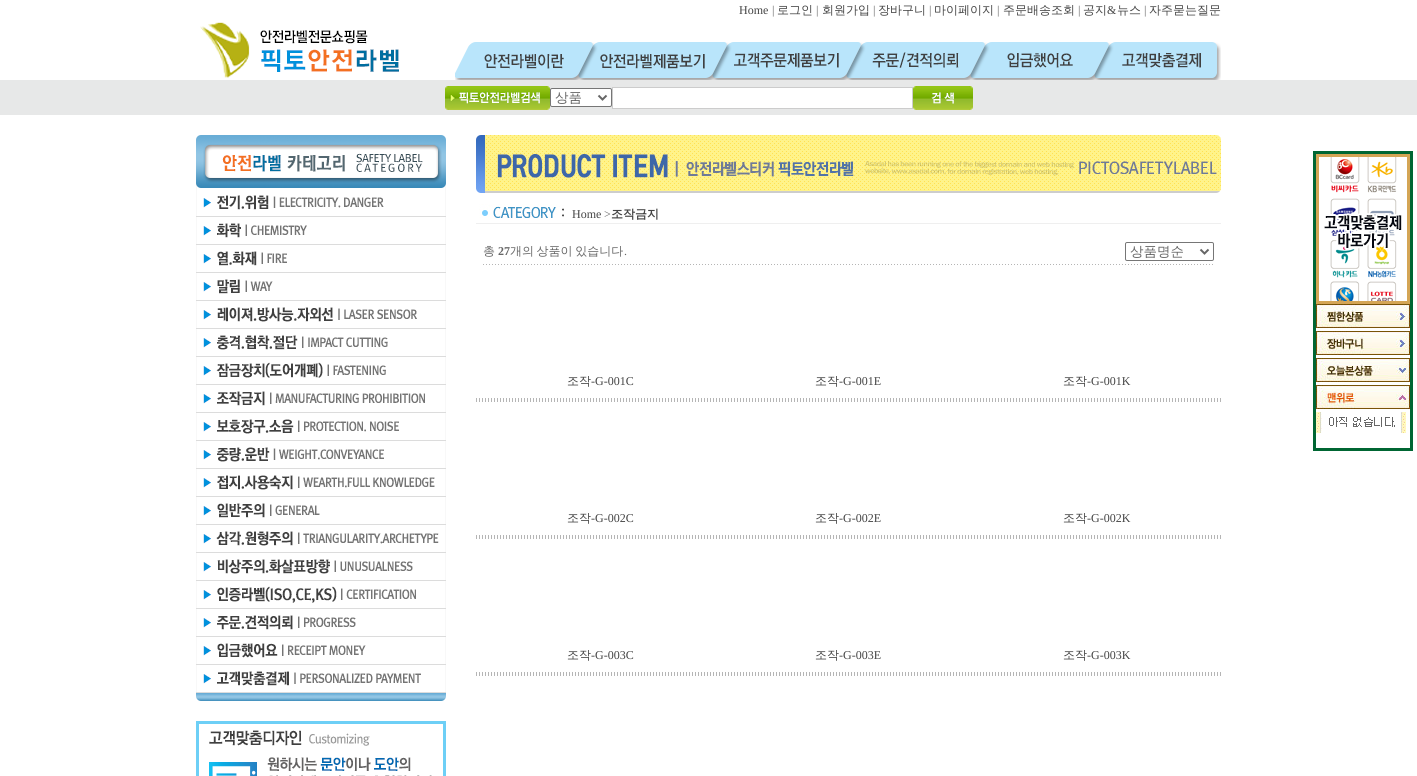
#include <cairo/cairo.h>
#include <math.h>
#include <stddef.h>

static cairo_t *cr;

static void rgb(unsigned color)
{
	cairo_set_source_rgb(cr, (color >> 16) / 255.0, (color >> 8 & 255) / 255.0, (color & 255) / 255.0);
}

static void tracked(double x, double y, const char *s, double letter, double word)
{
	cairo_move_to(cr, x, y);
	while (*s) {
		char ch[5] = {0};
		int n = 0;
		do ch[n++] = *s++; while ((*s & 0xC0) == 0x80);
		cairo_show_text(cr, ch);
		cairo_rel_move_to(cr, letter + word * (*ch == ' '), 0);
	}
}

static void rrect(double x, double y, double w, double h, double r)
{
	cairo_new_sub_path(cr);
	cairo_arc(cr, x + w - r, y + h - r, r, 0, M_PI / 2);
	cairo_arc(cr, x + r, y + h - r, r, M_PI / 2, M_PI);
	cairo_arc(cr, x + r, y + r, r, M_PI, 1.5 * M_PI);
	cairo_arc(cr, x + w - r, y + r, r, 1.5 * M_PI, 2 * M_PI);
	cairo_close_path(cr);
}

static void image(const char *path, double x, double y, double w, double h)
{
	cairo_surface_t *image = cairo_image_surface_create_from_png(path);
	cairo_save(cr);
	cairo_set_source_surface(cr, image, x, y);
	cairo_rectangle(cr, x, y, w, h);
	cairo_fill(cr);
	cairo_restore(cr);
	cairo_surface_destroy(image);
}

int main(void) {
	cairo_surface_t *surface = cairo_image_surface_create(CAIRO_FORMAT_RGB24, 1417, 776);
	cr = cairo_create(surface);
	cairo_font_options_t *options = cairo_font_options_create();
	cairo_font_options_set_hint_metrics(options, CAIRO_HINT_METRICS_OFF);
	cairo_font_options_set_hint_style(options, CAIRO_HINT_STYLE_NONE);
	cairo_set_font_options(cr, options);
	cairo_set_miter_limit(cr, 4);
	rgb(0xffffff);
	cairo_paint(cr);
	image("img/1.png", 200, 22, 199, 56);
	image("img/2.png", 455, 42, 138, 38);
	image("img/3.png", 593, 42, 134, 38);
	image("img/4.png", 727, 42, 134, 38);
	image("img/5.png", 861, 42, 124, 38);
	image("img/6.png", 985, 42, 124, 38);
	image("img/7.png", 1109, 42, 112, 38);
	rgb(0xe7e8e8);
	cairo_rectangle(cr, 0, 80, 1417, 35);
	cairo_fill(cr);
	image("img/8.png", 445, 86, 105, 24);
	rgb(0xffffff);
	rrect(550.5, 88.5, 61, 18, 1.5);
	cairo_fill_preserve(cr);
	rgb(0x767676);
	cairo_set_line_width(cr, 1);
	cairo_stroke(cr);
	cairo_new_path(cr);
	cairo_move_to(cr, 598.5, 95.5);
	cairo_line_to(cr, 602.5, 99.5);
	cairo_line_to(cr, 606.5, 95.5);
	rgb(0x666666);
	cairo_set_line_width(cr, 2);
	cairo_stroke(cr);
	rgb(0xffffff);
	cairo_rectangle(cr, 612.5, 87.5, 300, 21);
	cairo_fill_preserve(cr);
	rgb(0xcccccc);
	cairo_set_line_width(cr, 1);
	cairo_stroke(cr);
	image("img/9.png", 913, 86, 60, 24);
	image("img/10.png", 196, 135, 250, 53);
	image("img/11.png", 196, 188, 250, 29);
	image("img/12.png", 196, 217, 250, 28);
	image("img/13.png", 196, 245, 250, 28);
	image("img/14.png", 196, 273, 250, 28);
	image("img/15.png", 196, 301, 250, 28);
	image("img/16.png", 196, 329, 250, 28);
	image("img/17.png", 196, 357, 250, 28);
	image("img/18.png", 196, 385, 250, 28);
	image("img/19.png", 196, 413, 250, 28);
	image("img/20.png", 196, 441, 250, 28);
	image("img/21.png", 196, 469, 250, 28);
	image("img/22.png", 196, 497, 250, 28);
	image("img/23.png", 196, 525, 250, 28);
	image("img/24.png", 196, 553, 250, 28);
	image("img/25.png", 196, 581, 250, 28);
	image("img/26.png", 196, 609, 250, 28);
	image("img/27.png", 196, 637, 250, 28);
	image("img/28.png", 196, 665, 250, 28);
	image("img/29.png", 196, 693, 250, 8);
	image("img/30.png", 196, 721, 250, 55);
	image("img/31.png", 476, 135, 745, 58);
	image("img/32.png", 479, 204, 85, 14);
	rgb(0xefefef);
	cairo_rectangle(cr, 476, 223, 745, 1);
	cairo_fill(cr);
	rrect(1125.5, 242.5, 88, 18, 1.5);
	rgb(0x767676);
	cairo_stroke(cr);
	cairo_new_path(cr);
	cairo_move_to(cr, 1200.5, 249.5);
	cairo_line_to(cr, 1204.5, 253.5);
	cairo_line_to(cr, 1208.5, 249.5);
	rgb(0x666666);
	cairo_set_line_width(cr, 2);
	cairo_stroke(cr);
	image("img/33.png", 483, 264, 730, 1);
	image("img/34.png", 476, 398, 745, 4);
	image("img/34.png", 476, 535, 745, 4);
	image("img/34.png", 476, 672, 745, 4);
	cairo_rectangle(cr, 1314.5, 152.5, 97, 297);
	rgb(0x006633);
	cairo_set_line_width(cr, 3);
	cairo_stroke(cr);
	image("img/35.png", 1316, 154, 94, 150);
	image("img/36.png", 1316, 304, 94, 24);
	image("img/37.png", 1316, 331, 94, 24);
	image("img/38.png", 1316, 358, 94, 24);
	image("img/39.png", 1316, 385, 94, 24);
	image("img/40.png", 1316, 412, 90, 21);
	cairo_select_font_face(cr, "Liberation Serif", CAIRO_FONT_SLANT_NORMAL, CAIRO_FONT_WEIGHT_NORMAL);
	cairo_set_font_size(cr, 12);
	rgb(0x444444);
	cairo_move_to(cr, 739, 14);
	cairo_show_text(cr, "Home");
	rgb(0x666666);
	cairo_move_to(cr, 772, 14);
	cairo_show_text(cr, "|");
	cairo_select_font_face(cr, "WenQuanYi Zen Hei Medium", CAIRO_FONT_SLANT_NORMAL, CAIRO_FONT_WEIGHT_NORMAL);
	rgb(0x444444);
	cairo_move_to(cr, 777, 14);
	cairo_show_text(cr, "로그인");
	cairo_select_font_face(cr, "Liberation Serif", CAIRO_FONT_SLANT_NORMAL, CAIRO_FONT_WEIGHT_NORMAL);
	rgb(0x666666);
	cairo_move_to(cr, 816, 14);
	cairo_show_text(cr, "|");
	cairo_select_font_face(cr, "WenQuanYi Zen Hei Medium", CAIRO_FONT_SLANT_NORMAL, CAIRO_FONT_WEIGHT_NORMAL);
	rgb(0x444444);
	cairo_move_to(cr, 822, 14);
	cairo_show_text(cr, "회원가입");
	cairo_select_font_face(cr, "Liberation Serif", CAIRO_FONT_SLANT_NORMAL, CAIRO_FONT_WEIGHT_NORMAL);
	rgb(0x666666);
	cairo_move_to(cr, 873, 14);
	cairo_show_text(cr, "|");
	cairo_select_font_face(cr, "WenQuanYi Zen Hei Medium", CAIRO_FONT_SLANT_NORMAL, CAIRO_FONT_WEIGHT_NORMAL);
	rgb(0x444444);
	cairo_move_to(cr, 878, 14);
	cairo_show_text(cr, "장바구니");
	cairo_select_font_face(cr, "Liberation Serif", CAIRO_FONT_SLANT_NORMAL, CAIRO_FONT_WEIGHT_NORMAL);
	rgb(0x666666);
	cairo_move_to(cr, 929, 14);
	cairo_show_text(cr, "|");
	cairo_select_font_face(cr, "WenQuanYi Zen Hei Medium", CAIRO_FONT_SLANT_NORMAL, CAIRO_FONT_WEIGHT_NORMAL);
	rgb(0x444444);
	cairo_move_to(cr, 934, 14);
	cairo_show_text(cr, "마이페이지");
	cairo_select_font_face(cr, "Liberation Serif", CAIRO_FONT_SLANT_NORMAL, CAIRO_FONT_WEIGHT_NORMAL);
	rgb(0x666666);
	cairo_move_to(cr, 997, 14);
	cairo_show_text(cr, "|");
	cairo_select_font_face(cr, "WenQuanYi Zen Hei Medium", CAIRO_FONT_SLANT_NORMAL, CAIRO_FONT_WEIGHT_NORMAL);
	rgb(0x444444);
	cairo_move_to(cr, 1003, 14);
	cairo_show_text(cr, "주문배송조회");
	cairo_select_font_face(cr, "Liberation Serif", CAIRO_FONT_SLANT_NORMAL, CAIRO_FONT_WEIGHT_NORMAL);
	rgb(0x666666);
	cairo_move_to(cr, 1078, 14);
	cairo_show_text(cr, "|");
	cairo_select_font_face(cr, "WenQuanYi Zen Hei Medium", CAIRO_FONT_SLANT_NORMAL, CAIRO_FONT_WEIGHT_NORMAL);
	rgb(0x444444);
	cairo_move_to(cr, 1083, 14);
	cairo_show_text(cr, "공지");
	cairo_select_font_face(cr, "Liberation Serif", CAIRO_FONT_SLANT_NORMAL, CAIRO_FONT_WEIGHT_NORMAL);
	cairo_move_to(cr, 1107, 14);
	cairo_show_text(cr, "&");
	cairo_select_font_face(cr, "WenQuanYi Zen Hei Medium", CAIRO_FONT_SLANT_NORMAL, CAIRO_FONT_WEIGHT_NORMAL);
	cairo_move_to(cr, 1117, 14);
	cairo_show_text(cr, "뉴스");
	cairo_select_font_face(cr, "Liberation Serif", CAIRO_FONT_SLANT_NORMAL, CAIRO_FONT_WEIGHT_NORMAL);
	rgb(0x666666);
	cairo_move_to(cr, 1144, 14);
	cairo_show_text(cr, "|");
	cairo_select_font_face(cr, "WenQuanYi Zen Hei Medium", CAIRO_FONT_SLANT_NORMAL, CAIRO_FONT_WEIGHT_NORMAL);
	rgb(0x444444);
	cairo_move_to(cr, 1149, 14);
	cairo_show_text(cr, "자주묻는질문");
	cairo_set_font_size(cr, 13.5);
	rgb(0x666666);
	cairo_move_to(cr, 555, 102);
	cairo_show_text(cr, "상품");
	cairo_select_font_face(cr, "Liberation Serif", CAIRO_FONT_SLANT_NORMAL, CAIRO_FONT_WEIGHT_NORMAL);
	cairo_set_font_size(cr, 12);
	rgb(0x444444);
	cairo_move_to(cr, 572, 218);
	cairo_show_text(cr, "Home");
	rgb(0x666666);
	cairo_move_to(cr, 604, 218);
	cairo_show_text(cr, ">");
	cairo_select_font_face(cr, "WenQuanYi Zen Hei", CAIRO_FONT_SLANT_NORMAL, CAIRO_FONT_WEIGHT_BOLD);
	rgb(0x444444);
	cairo_move_to(cr, 611, 218);
	cairo_show_text(cr, "조작금지");
	cairo_select_font_face(cr, "WenQuanYi Zen Hei Medium", CAIRO_FONT_SLANT_NORMAL, CAIRO_FONT_WEIGHT_NORMAL);
	rgb(0x666666);
	cairo_move_to(cr, 483, 255);
	cairo_show_text(cr, "총");
	cairo_select_font_face(cr, "Liberation Serif", CAIRO_FONT_SLANT_NORMAL, CAIRO_FONT_WEIGHT_BOLD);
	cairo_move_to(cr, 498, 255);
	cairo_show_text(cr, "27");
	cairo_select_font_face(cr, "WenQuanYi Zen Hei Medium", CAIRO_FONT_SLANT_NORMAL, CAIRO_FONT_WEIGHT_NORMAL);
	tracked(510, 255, "개의 상품이 있습니다", 0, -1);
	cairo_select_font_face(cr, "Liberation Serif", CAIRO_FONT_SLANT_NORMAL, CAIRO_FONT_WEIGHT_NORMAL);
	cairo_move_to(cr, 624, 255);
	cairo_show_text(cr, ".");
	cairo_select_font_face(cr, "WenQuanYi Zen Hei Medium", CAIRO_FONT_SLANT_NORMAL, CAIRO_FONT_WEIGHT_NORMAL);
	cairo_set_font_size(cr, 13.5);
	cairo_move_to(cr, 1130, 256);
	cairo_show_text(cr, "상품명순");
	cairo_set_font_size(cr, 12);
	rgb(0x444444);
	cairo_move_to(cr, 567, 385);
	cairo_show_text(cr, "조작");
	cairo_select_font_face(cr, "Liberation Serif", CAIRO_FONT_SLANT_NORMAL, CAIRO_FONT_WEIGHT_NORMAL);
	cairo_move_to(cr, 591, 385);
	cairo_show_text(cr, "-G-001C");
	cairo_select_font_face(cr, "WenQuanYi Zen Hei Medium", CAIRO_FONT_SLANT_NORMAL, CAIRO_FONT_WEIGHT_NORMAL);
	cairo_move_to(cr, 815, 385);
	cairo_show_text(cr, "조작");
	cairo_select_font_face(cr, "Liberation Serif", CAIRO_FONT_SLANT_NORMAL, CAIRO_FONT_WEIGHT_NORMAL);
	cairo_move_to(cr, 839, 385);
	cairo_show_text(cr, "-G-001E");
	cairo_select_font_face(cr, "WenQuanYi Zen Hei Medium", CAIRO_FONT_SLANT_NORMAL, CAIRO_FONT_WEIGHT_NORMAL);
	cairo_move_to(cr, 1063, 385);
	cairo_show_text(cr, "조작");
	cairo_select_font_face(cr, "Liberation Serif", CAIRO_FONT_SLANT_NORMAL, CAIRO_FONT_WEIGHT_NORMAL);
	cairo_move_to(cr, 1087, 385);
	cairo_show_text(cr, "-G-001K");
	cairo_select_font_face(cr, "WenQuanYi Zen Hei Medium", CAIRO_FONT_SLANT_NORMAL, CAIRO_FONT_WEIGHT_NORMAL);
	cairo_move_to(cr, 567, 522);
	cairo_show_text(cr, "조작");
	cairo_select_font_face(cr, "Liberation Serif", CAIRO_FONT_SLANT_NORMAL, CAIRO_FONT_WEIGHT_NORMAL);
	cairo_move_to(cr, 591, 522);
	cairo_show_text(cr, "-G-002C");
	cairo_select_font_face(cr, "WenQuanYi Zen Hei Medium", CAIRO_FONT_SLANT_NORMAL, CAIRO_FONT_WEIGHT_NORMAL);
	cairo_move_to(cr, 815, 522);
	cairo_show_text(cr, "조작");
	cairo_select_font_face(cr, "Liberation Serif", CAIRO_FONT_SLANT_NORMAL, CAIRO_FONT_WEIGHT_NORMAL);
	cairo_move_to(cr, 839, 522);
	cairo_show_text(cr, "-G-002E");
	cairo_select_font_face(cr, "WenQuanYi Zen Hei Medium", CAIRO_FONT_SLANT_NORMAL, CAIRO_FONT_WEIGHT_NORMAL);
	cairo_move_to(cr, 1063, 522);
	cairo_show_text(cr, "조작");
	cairo_select_font_face(cr, "Liberation Serif", CAIRO_FONT_SLANT_NORMAL, CAIRO_FONT_WEIGHT_NORMAL);
	cairo_move_to(cr, 1087, 522);
	cairo_show_text(cr, "-G-002K");
	cairo_select_font_face(cr, "WenQuanYi Zen Hei Medium", CAIRO_FONT_SLANT_NORMAL, CAIRO_FONT_WEIGHT_NORMAL);
	cairo_move_to(cr, 567, 659);
	cairo_show_text(cr, "조작");
	cairo_select_font_face(cr, "Liberation Serif", CAIRO_FONT_SLANT_NORMAL, CAIRO_FONT_WEIGHT_NORMAL);
	cairo_move_to(cr, 591, 659);
	cairo_show_text(cr, "-G-003C");
	cairo_select_font_face(cr, "WenQuanYi Zen Hei Medium", CAIRO_FONT_SLANT_NORMAL, CAIRO_FONT_WEIGHT_NORMAL);
	cairo_move_to(cr, 815, 659);
	cairo_show_text(cr, "조작");
	cairo_select_font_face(cr, "Liberation Serif", CAIRO_FONT_SLANT_NORMAL, CAIRO_FONT_WEIGHT_NORMAL);
	cairo_move_to(cr, 839, 659);
	cairo_show_text(cr, "-G-003E");
	cairo_select_font_face(cr, "WenQuanYi Zen Hei Medium", CAIRO_FONT_SLANT_NORMAL, CAIRO_FONT_WEIGHT_NORMAL);
	cairo_move_to(cr, 1063, 659);
	cairo_show_text(cr, "조작");
	cairo_select_font_face(cr, "Liberation Serif", CAIRO_FONT_SLANT_NORMAL, CAIRO_FONT_WEIGHT_NORMAL);
	cairo_move_to(cr, 1087, 659);
	cairo_show_text(cr, "-G-003K");
	cairo_surface_write_to_png(surface, "page.png");
	cairo_font_options_destroy(options);
	cairo_destroy(cr);
	cairo_surface_destroy(surface);
	return 0;
}
